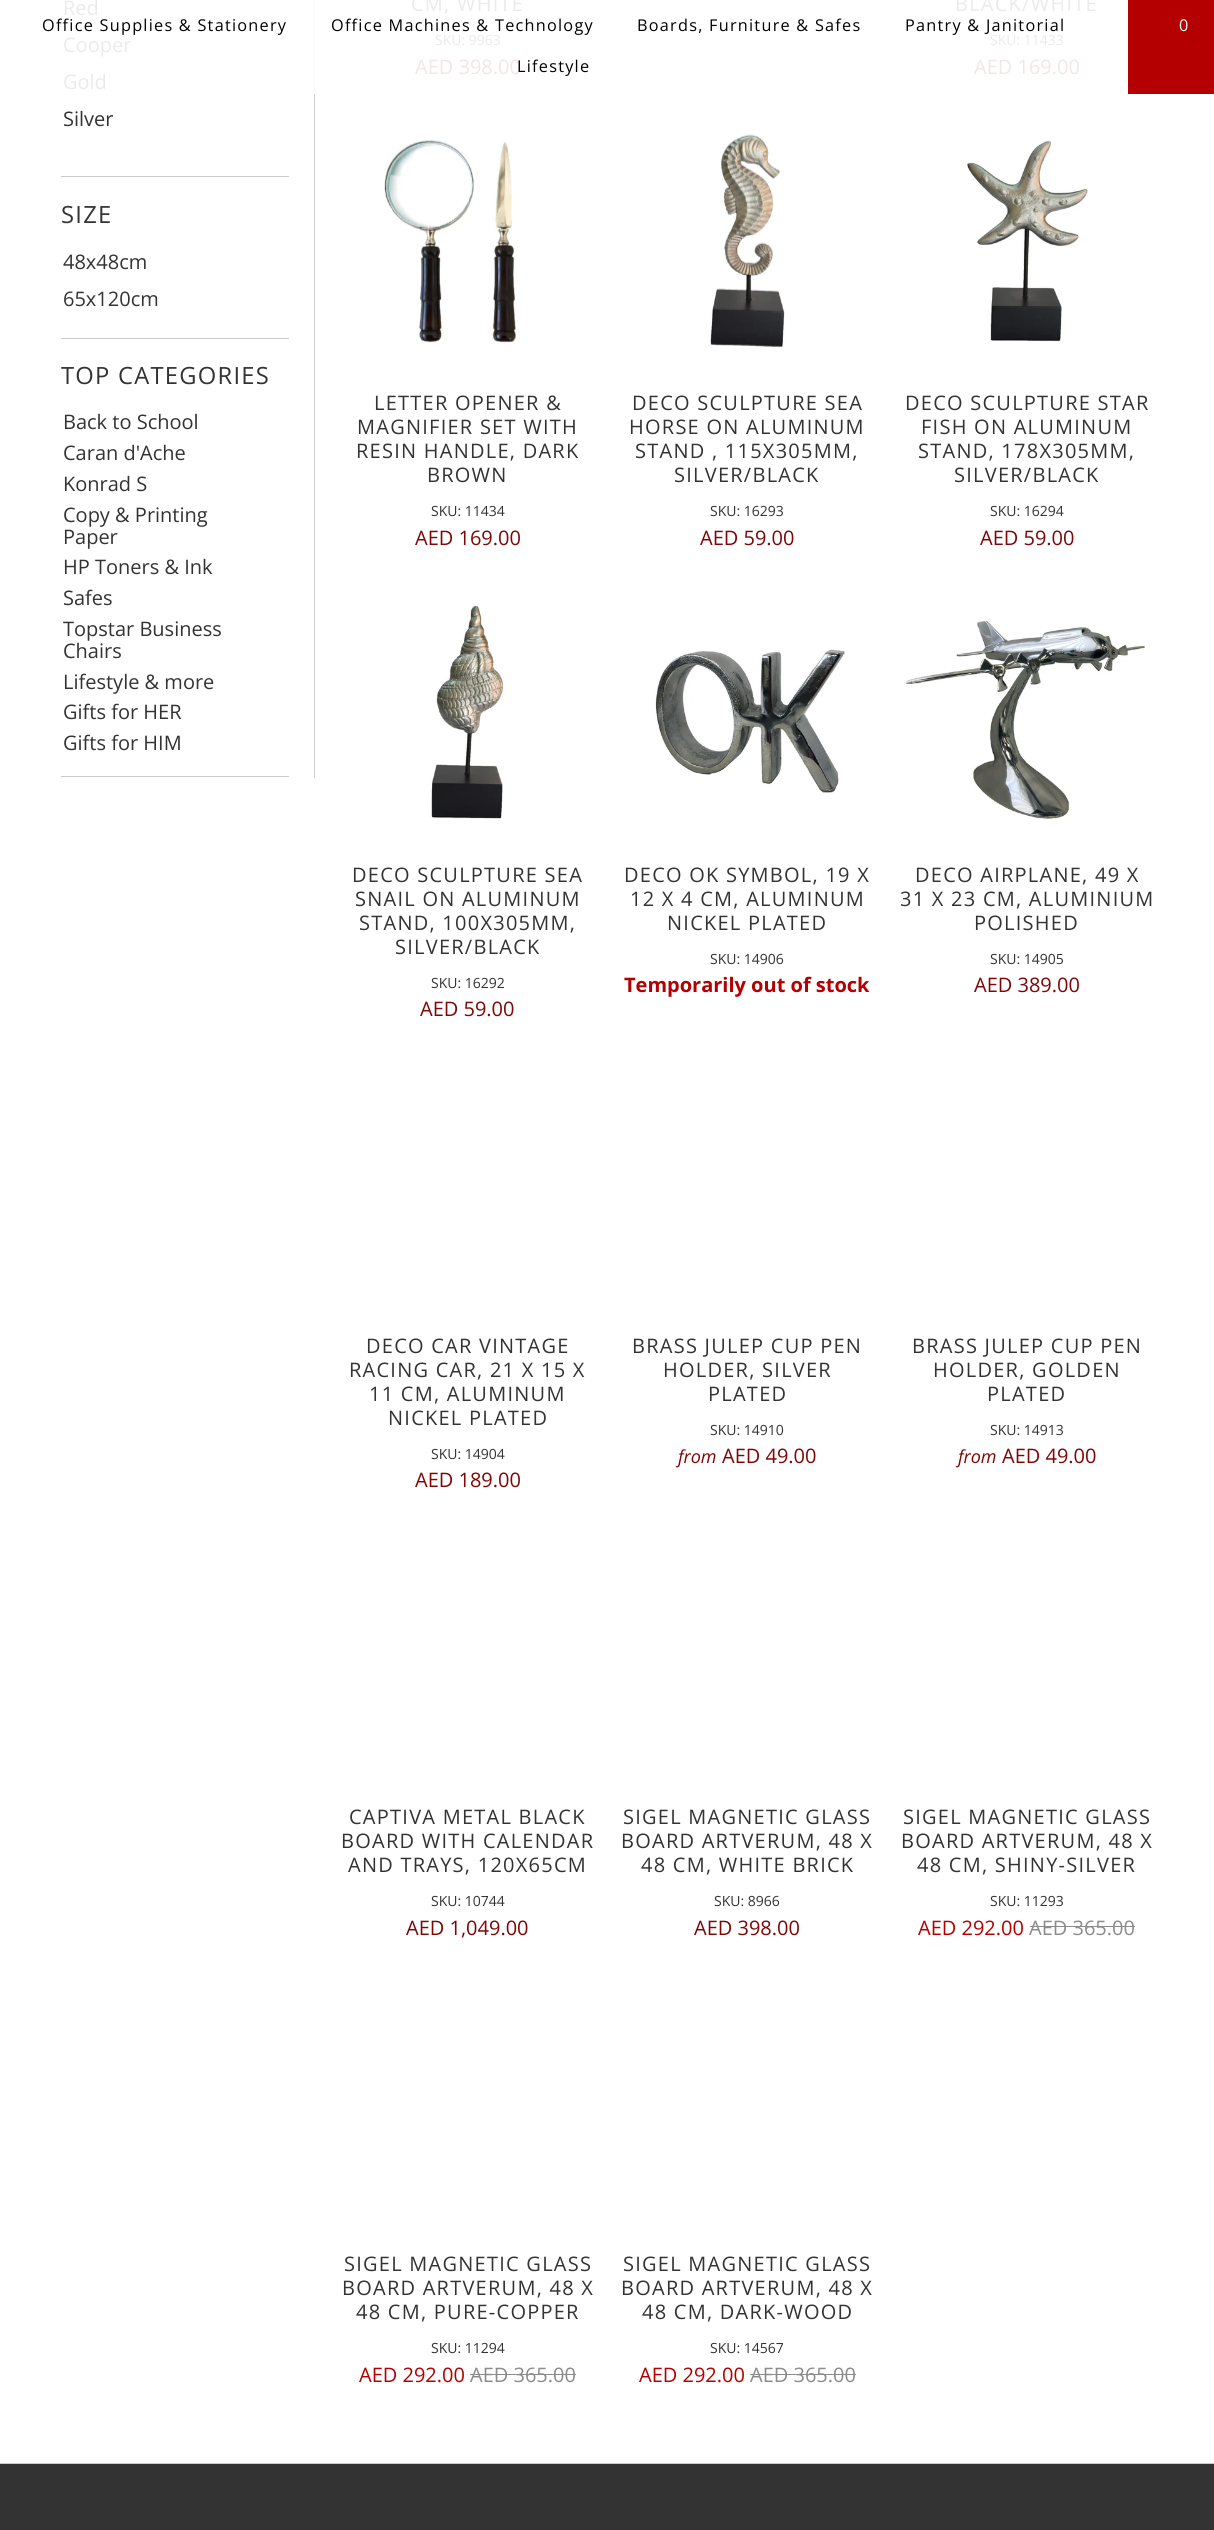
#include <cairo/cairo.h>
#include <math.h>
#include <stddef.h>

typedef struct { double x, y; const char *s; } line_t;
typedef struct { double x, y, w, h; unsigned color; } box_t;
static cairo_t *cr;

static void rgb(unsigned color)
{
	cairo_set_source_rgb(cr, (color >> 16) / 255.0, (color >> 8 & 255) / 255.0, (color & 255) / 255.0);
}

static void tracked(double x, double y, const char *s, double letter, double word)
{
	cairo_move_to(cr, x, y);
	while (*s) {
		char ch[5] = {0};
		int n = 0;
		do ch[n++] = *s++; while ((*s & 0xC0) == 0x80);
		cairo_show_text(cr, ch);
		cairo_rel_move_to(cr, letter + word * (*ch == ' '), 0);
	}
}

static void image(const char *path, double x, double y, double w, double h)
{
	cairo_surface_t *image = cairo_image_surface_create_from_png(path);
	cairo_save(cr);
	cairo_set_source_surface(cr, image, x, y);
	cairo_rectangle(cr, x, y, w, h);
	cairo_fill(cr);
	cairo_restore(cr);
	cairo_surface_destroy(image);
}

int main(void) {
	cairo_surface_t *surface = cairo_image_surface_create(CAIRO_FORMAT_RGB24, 1214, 2530);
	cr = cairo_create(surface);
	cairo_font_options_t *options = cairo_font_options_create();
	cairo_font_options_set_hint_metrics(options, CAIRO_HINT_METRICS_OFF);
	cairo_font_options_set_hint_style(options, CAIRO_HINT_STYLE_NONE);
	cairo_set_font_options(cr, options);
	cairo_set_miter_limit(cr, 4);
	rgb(0xffffff);
	cairo_paint(cr);
	{
		static const box_t items[] = {
			{314, 94, 1, 684, 0xcccccc},
			{314, 0, 1, 94, 0xfafafa},
			{61, 176, 228, 1, 0xcccccc},
			{61, 338, 228, 1, 0xcccccc},
			{61, 776, 228, 1, 0xcccccc},
		};
		for (size_t i = 0; i < sizeof items / sizeof *items; i++) {
			rgb(items[i].color);
			cairo_rectangle(cr, items[i].x, items[i].y, items[i].w, items[i].h);
			cairo_fill(cr);
		}
	}
	image("img/1.png", 384, 140, 133, 203);
	image("img/2.png", 710, 134, 75, 214);
	image("img/3.png", 967, 141, 121, 201);
	image("img/4.png", 430, 605, 75, 214);
	image("img/5.png", 655, 649, 190, 145);
	image("img/6.png", 905, 620, 240, 200);
	{
		static const box_t items[] = {
			{1030, 1926, 105, 1, 0x8c8b8b},
			{470, 2374, 106, 1, 0x8c8b8b},
			{750, 2374, 106, 1, 0x8c8b8b},
			{1128, 0, 86, 94, 0xb40000},
			{0, 2464, 1214, 66, 0x333333},
			{0, 2463, 1214, 1, 0xcccccc},
		};
		for (size_t i = 0; i < sizeof items / sizeof *items; i++) {
			rgb(items[i].color);
			cairo_rectangle(cr, items[i].x, items[i].y, items[i].w, items[i].h);
			cairo_fill(cr);
		}
	}
	cairo_select_font_face(cr, "Open Sans", CAIRO_FONT_SLANT_NORMAL, CAIRO_FONT_WEIGHT_NORMAL);
	cairo_set_font_size(cr, 20);
	rgb(0xebebeb);
	{
		static const line_t items[] = {
			{63, 15, "Red"},
			{63, 52, "Cooper"},
			{63, 89, "Gold"},
		};
		for (size_t i = 0; i < sizeof items / sizeof *items; i++) {
			cairo_move_to(cr, items[i].x, items[i].y);
			cairo_show_text(cr, items[i].s);
		}
	}
	rgb(0x333333);
	cairo_move_to(cr, 63, 126);
	cairo_show_text(cr, "Silver");
	cairo_set_font_size(cr, 23.75);
	tracked(61, 223, "SIZE", 1.25, 0);
	cairo_set_font_size(cr, 20);
	cairo_move_to(cr, 63, 269);
	cairo_show_text(cr, "48x48cm");
	cairo_move_to(cr, 63, 306);
	cairo_show_text(cr, "65x120cm");
	cairo_set_font_size(cr, 23.75);
	tracked(61, 384, "TOP CATEGORIES", 1.25, 0);
	cairo_set_font_size(cr, 20);
	{
		static const line_t items[] = {
			{63, 429, "Back to School"},
			{63, 460, "Caran d'Ache"},
			{63, 491, "Konrad S"},
			{63, 522, "Copy & Printing"},
			{63, 544, "Paper"},
			{63, 574, "HP Toners & Ink"},
			{63, 605, "Safes"},
			{63, 636, "Topstar Business"},
			{63, 658, "Chairs"},
			{63, 689, "Lifestyle & more"},
			{63, 719, "Gifts for HER"},
			{63, 750, "Gifts for HIM"},
		};
		for (size_t i = 0; i < sizeof items / sizeof *items; i++) {
			cairo_move_to(cr, items[i].x, items[i].y);
			cairo_show_text(cr, items[i].s);
		}
	}
	rgb(0xebebeb);
	tracked(411, 11, "CM, WHITE", 1.25, 0);
	cairo_set_font_size(cr, 14);
	cairo_move_to(cr, 435, 45);
	cairo_show_text(cr, "SKU: 9963");
	cairo_set_font_size(cr, 20);
	rgb(0xf2e6e6);
	cairo_move_to(cr, 415, 74);
	cairo_show_text(cr, "AED 398.00");
	rgb(0xebebeb);
	tracked(955, 11, "BLACK/WHITE", 1.25, 0);
	cairo_set_font_size(cr, 14);
	cairo_move_to(cr, 990, 45);
	cairo_show_text(cr, "SKU: 11433");
	cairo_set_font_size(cr, 20);
	rgb(0xf2e6e6);
	cairo_move_to(cr, 974, 74);
	cairo_show_text(cr, "AED 169.00");
	rgb(0x333333);
	{
		static const line_t items[] = {
			{374, 410, "LETTER OPENER &"},
			{357, 434, "MAGNIFIER SET WITH"},
			{356, 458, "RESIN HANDLE, DARK"},
			{427, 482, "BROWN"},
		};
		for (size_t i = 0; i < sizeof items / sizeof *items; i++) {
			tracked(items[i].x, items[i].y, items[i].s, 1.25, 0);
		}
	}
	cairo_set_font_size(cr, 14);
	cairo_move_to(cr, 431, 516);
	cairo_show_text(cr, "SKU: 11434");
	cairo_set_font_size(cr, 20);
	rgb(0x7e0606);
	cairo_move_to(cr, 415, 545);
	cairo_show_text(cr, "AED 169.00");
	rgb(0x333333);
	{
		static const line_t items[] = {
			{632, 410, "DECO SCULPTURE SEA"},
			{629, 434, "HORSE ON ALUMINUM"},
			{635, 458, "STAND , 115X305MM,"},
			{674, 482, "SILVER/BLACK"},
		};
		for (size_t i = 0; i < sizeof items / sizeof *items; i++) {
			tracked(items[i].x, items[i].y, items[i].s, 1.25, 0);
		}
	}
	cairo_set_font_size(cr, 14);
	cairo_move_to(cr, 710, 516);
	cairo_show_text(cr, "SKU: 16293");
	cairo_set_font_size(cr, 20);
	rgb(0x7e0606);
	cairo_move_to(cr, 700, 545);
	cairo_show_text(cr, "AED 59.00");
	rgb(0x333333);
	{
		static const line_t items[] = {
			{905, 410, "DECO SCULPTURE STAR"},
			{921, 434, "FISH ON ALUMINUM"},
			{918, 458, "STAND, 178X305MM,"},
			{954, 482, "SILVER/BLACK"},
		};
		for (size_t i = 0; i < sizeof items / sizeof *items; i++) {
			tracked(items[i].x, items[i].y, items[i].s, 1.25, 0);
		}
	}
	cairo_set_font_size(cr, 14);
	cairo_move_to(cr, 990, 516);
	cairo_show_text(cr, "SKU: 16294");
	cairo_set_font_size(cr, 20);
	rgb(0x7e0606);
	cairo_move_to(cr, 980, 545);
	cairo_show_text(cr, "AED 59.00");
	rgb(0x333333);
	{
		static const line_t items[] = {
			{352, 882, "DECO SCULPTURE SEA"},
			{355, 906, "SNAIL ON ALUMINUM"},
			{359, 930, "STAND, 100X305MM,"},
			{395, 954, "SILVER/BLACK"},
		};
		for (size_t i = 0; i < sizeof items / sizeof *items; i++) {
			tracked(items[i].x, items[i].y, items[i].s, 1.25, 0);
		}
	}
	cairo_set_font_size(cr, 14);
	cairo_move_to(cr, 431, 988);
	cairo_show_text(cr, "SKU: 16292");
	cairo_set_font_size(cr, 20);
	rgb(0x7e0606);
	cairo_move_to(cr, 420, 1016);
	cairo_show_text(cr, "AED 59.00");
	rgb(0x333333);
	{
		static const line_t items[] = {
			{624, 882, "DECO OK SYMBOL, 19 X"},
			{630, 906, "12 X 4 CM, ALUMINUM"},
			{667, 930, "NICKEL PLATED"},
		};
		for (size_t i = 0; i < sizeof items / sizeof *items; i++) {
			tracked(items[i].x, items[i].y, items[i].s, 1.25, 0);
		}
	}
	cairo_set_font_size(cr, 14);
	cairo_move_to(cr, 710, 964);
	cairo_show_text(cr, "SKU: 14906");
	cairo_select_font_face(cr, "Open Sans", CAIRO_FONT_SLANT_NORMAL, CAIRO_FONT_WEIGHT_BOLD);
	cairo_set_font_size(cr, 20);
	rgb(0xb40000);
	cairo_move_to(cr, 624, 992);
	cairo_show_text(cr, "Temporarily out of stock");
	cairo_select_font_face(cr, "Open Sans", CAIRO_FONT_SLANT_NORMAL, CAIRO_FONT_WEIGHT_NORMAL);
	rgb(0x333333);
	{
		static const line_t items[] = {
			{915, 882, "DECO AIRPLANE, 49 X"},
			{900, 906, "31 X 23 CM, ALUMINIUM"},
			{974, 930, "POLISHED"},
		};
		for (size_t i = 0; i < sizeof items / sizeof *items; i++) {
			tracked(items[i].x, items[i].y, items[i].s, 1.25, 0);
		}
	}
	cairo_set_font_size(cr, 14);
	cairo_move_to(cr, 990, 964);
	cairo_show_text(cr, "SKU: 14905");
	cairo_set_font_size(cr, 20);
	rgb(0x7e0606);
	cairo_move_to(cr, 974, 992);
	cairo_show_text(cr, "AED 389.00");
	rgb(0x333333);
	{
		static const line_t items[] = {
			{366, 1353, "DECO CAR VINTAGE"},
			{349, 1377, "RACING CAR, 21 X 15 X"},
			{369, 1401, "11 CM, ALUMINUM"},
			{388, 1425, "NICKEL PLATED"},
		};
		for (size_t i = 0; i < sizeof items / sizeof *items; i++) {
			tracked(items[i].x, items[i].y, items[i].s, 1.25, 0);
		}
	}
	cairo_set_font_size(cr, 14);
	cairo_move_to(cr, 431, 1459);
	cairo_show_text(cr, "SKU: 14904");
	cairo_set_font_size(cr, 20);
	rgb(0x7e0606);
	cairo_move_to(cr, 415, 1487);
	cairo_show_text(cr, "AED 189.00");
	rgb(0x333333);
	{
		static const line_t items[] = {
			{632, 1353, "BRASS JULEP CUP PEN"},
			{663, 1377, "HOLDER, SILVER"},
			{708, 1401, "PLATED"},
		};
		for (size_t i = 0; i < sizeof items / sizeof *items; i++) {
			tracked(items[i].x, items[i].y, items[i].s, 1.25, 0);
		}
	}
	cairo_set_font_size(cr, 14);
	cairo_move_to(cr, 710, 1435);
	cairo_show_text(cr, "SKU: 14910");
	cairo_select_font_face(cr, "Open Sans", CAIRO_FONT_SLANT_ITALIC, CAIRO_FONT_WEIGHT_NORMAL);
	cairo_set_font_size(cr, 18);
	rgb(0x7e0606);
	cairo_move_to(cr, 678, 1463);
	cairo_show_text(cr, "from");
	cairo_select_font_face(cr, "Open Sans", CAIRO_FONT_SLANT_NORMAL, CAIRO_FONT_WEIGHT_NORMAL);
	cairo_set_font_size(cr, 20);
	cairo_move_to(cr, 722, 1463);
	cairo_show_text(cr, "AED 49.00");
	rgb(0x333333);
	{
		static const line_t items[] = {
			{912, 1353, "BRASS JULEP CUP PEN"},
			{933, 1377, "HOLDER, GOLDEN"},
			{987, 1401, "PLATED"},
		};
		for (size_t i = 0; i < sizeof items / sizeof *items; i++) {
			tracked(items[i].x, items[i].y, items[i].s, 1.25, 0);
		}
	}
	cairo_set_font_size(cr, 14);
	cairo_move_to(cr, 990, 1435);
	cairo_show_text(cr, "SKU: 14913");
	cairo_select_font_face(cr, "Open Sans", CAIRO_FONT_SLANT_ITALIC, CAIRO_FONT_WEIGHT_NORMAL);
	cairo_set_font_size(cr, 18);
	rgb(0x7e0606);
	cairo_move_to(cr, 958, 1463);
	cairo_show_text(cr, "from");
	cairo_select_font_face(cr, "Open Sans", CAIRO_FONT_SLANT_NORMAL, CAIRO_FONT_WEIGHT_NORMAL);
	cairo_set_font_size(cr, 20);
	cairo_move_to(cr, 1002, 1463);
	cairo_show_text(cr, "AED 49.00");
	rgb(0x333333);
	{
		static const line_t items[] = {
			{349, 1824, "CAPTIVA METAL BLACK"},
			{341, 1848, "BOARD WITH CALENDAR"},
			{348, 1872, "AND TRAYS, 120X65CM"},
		};
		for (size_t i = 0; i < sizeof items / sizeof *items; i++) {
			tracked(items[i].x, items[i].y, items[i].s, 1.25, 0);
		}
	}
	cairo_set_font_size(cr, 14);
	cairo_move_to(cr, 431, 1906);
	cairo_show_text(cr, "SKU: 10744");
	cairo_set_font_size(cr, 20);
	rgb(0x7e0606);
	cairo_move_to(cr, 406, 1935);
	cairo_show_text(cr, "AED 1,049.00");
	rgb(0x333333);
	{
		static const line_t items[] = {
			{623, 1824, "SIGEL MAGNETIC GLASS"},
			{621, 1848, "BOARD ARTVERUM, 48 X"},
			{641, 1872, "48 CM, WHITE BRICK"},
		};
		for (size_t i = 0; i < sizeof items / sizeof *items; i++) {
			tracked(items[i].x, items[i].y, items[i].s, 1.25, 0);
		}
	}
	cairo_set_font_size(cr, 14);
	cairo_move_to(cr, 714, 1906);
	cairo_show_text(cr, "SKU: 8966");
	cairo_set_font_size(cr, 20);
	rgb(0x7e0606);
	cairo_move_to(cr, 694, 1935);
	cairo_show_text(cr, "AED 398.00");
	rgb(0x333333);
	{
		static const line_t items[] = {
			{903, 1824, "SIGEL MAGNETIC GLASS"},
			{901, 1848, "BOARD ARTVERUM, 48 X"},
			{917, 1872, "48 CM, SHINY-SILVER"},
		};
		for (size_t i = 0; i < sizeof items / sizeof *items; i++) {
			tracked(items[i].x, items[i].y, items[i].s, 1.25, 0);
		}
	}
	cairo_set_font_size(cr, 14);
	cairo_move_to(cr, 990, 1906);
	cairo_show_text(cr, "SKU: 11293");
	cairo_set_font_size(cr, 20);
	rgb(0xb40000);
	cairo_move_to(cr, 918, 1935);
	cairo_show_text(cr, "AED 292.00");
	rgb(0x8c8b8b);
	cairo_move_to(cr, 1029, 1935);
	cairo_show_text(cr, "AED 365.00");
	rgb(0x333333);
	{
		static const line_t items[] = {
			{344, 2271, "SIGEL MAGNETIC GLASS"},
			{342, 2295, "BOARD ARTVERUM, 48 X"},
			{356, 2319, "48 CM, PURE-COPPER"},
		};
		for (size_t i = 0; i < sizeof items / sizeof *items; i++) {
			tracked(items[i].x, items[i].y, items[i].s, 1.25, 0);
		}
	}
	cairo_set_font_size(cr, 14);
	cairo_move_to(cr, 431, 2353);
	cairo_show_text(cr, "SKU: 11294");
	cairo_set_font_size(cr, 20);
	rgb(0xb40000);
	cairo_move_to(cr, 359, 2382);
	cairo_show_text(cr, "AED 292.00");
	rgb(0x8c8b8b);
	cairo_move_to(cr, 470, 2382);
	cairo_show_text(cr, "AED 365.00");
	rgb(0x333333);
	{
		static const line_t items[] = {
			{623, 2271, "SIGEL MAGNETIC GLASS"},
			{621, 2295, "BOARD ARTVERUM, 48 X"},
			{642, 2319, "48 CM, DARK-WOOD"},
		};
		for (size_t i = 0; i < sizeof items / sizeof *items; i++) {
			tracked(items[i].x, items[i].y, items[i].s, 1.25, 0);
		}
	}
	cairo_set_font_size(cr, 14);
	cairo_move_to(cr, 710, 2353);
	cairo_show_text(cr, "SKU: 14567");
	cairo_set_font_size(cr, 20);
	rgb(0xb40000);
	cairo_move_to(cr, 639, 2382);
	cairo_show_text(cr, "AED 292.00");
	rgb(0x8c8b8b);
	cairo_move_to(cr, 750, 2382);
	cairo_show_text(cr, "AED 365.00");
	cairo_set_font_size(cr, 16.25);
	rgb(0x000000);
	{
		static const line_t items[] = {
			{42, 31, "Office Supplies & Stationery"},
			{331, 31, "Office Machines & Technology"},
			{637, 31, "Boards, Furniture & Safes"},
			{905, 31, "Pantry & Janitorial"},
			{517, 72, "Lifestyle"},
		};
		for (size_t i = 0; i < sizeof items / sizeof *items; i++) {
			tracked(items[i].x, items[i].y, items[i].s, 1.25, 0);
		}
	}
	rgb(0xffffff);
	tracked(1179, 31, "0", 1.25, 0);
	cairo_surface_write_to_png(surface, "page.png");
	cairo_font_options_destroy(options);
	cairo_destroy(cr);
	cairo_surface_destroy(surface);
	return 0;
}
